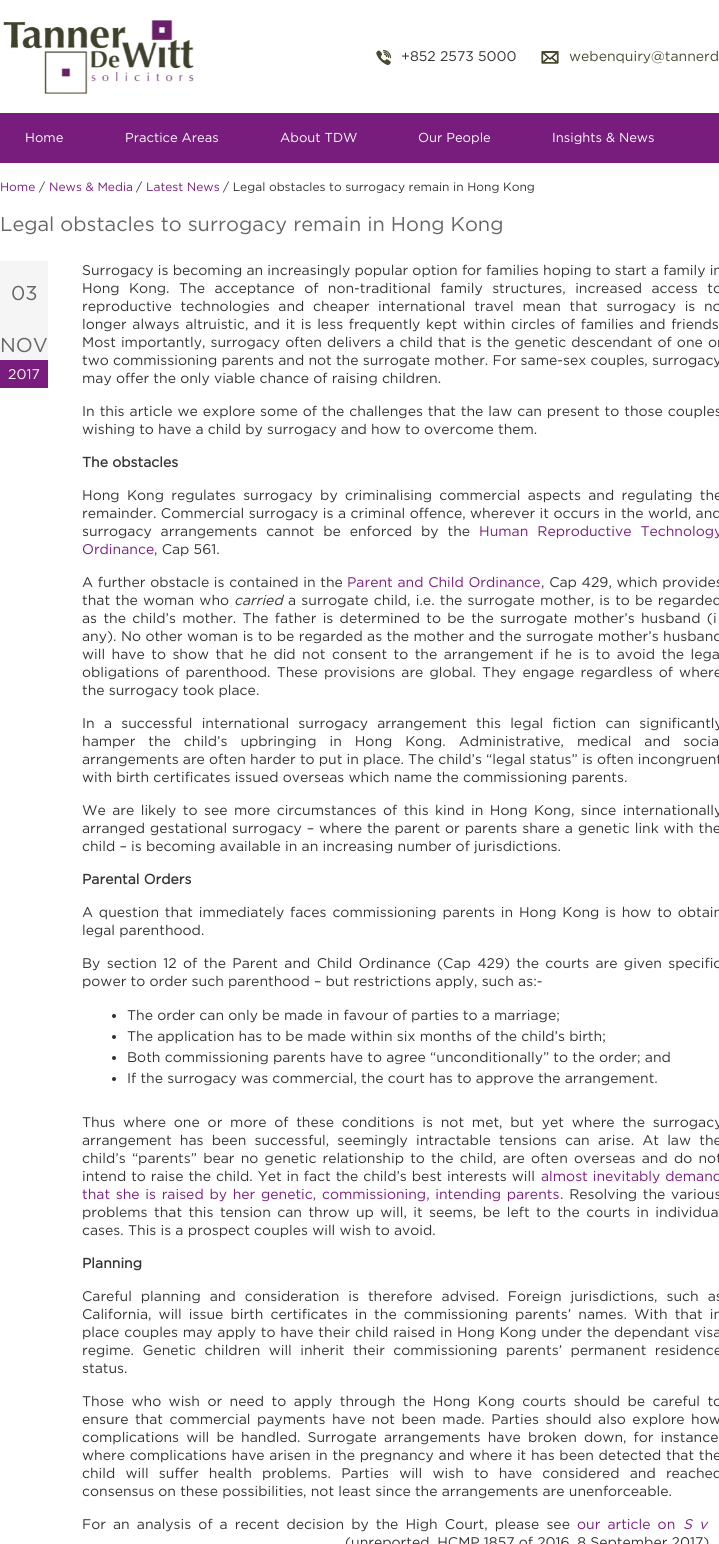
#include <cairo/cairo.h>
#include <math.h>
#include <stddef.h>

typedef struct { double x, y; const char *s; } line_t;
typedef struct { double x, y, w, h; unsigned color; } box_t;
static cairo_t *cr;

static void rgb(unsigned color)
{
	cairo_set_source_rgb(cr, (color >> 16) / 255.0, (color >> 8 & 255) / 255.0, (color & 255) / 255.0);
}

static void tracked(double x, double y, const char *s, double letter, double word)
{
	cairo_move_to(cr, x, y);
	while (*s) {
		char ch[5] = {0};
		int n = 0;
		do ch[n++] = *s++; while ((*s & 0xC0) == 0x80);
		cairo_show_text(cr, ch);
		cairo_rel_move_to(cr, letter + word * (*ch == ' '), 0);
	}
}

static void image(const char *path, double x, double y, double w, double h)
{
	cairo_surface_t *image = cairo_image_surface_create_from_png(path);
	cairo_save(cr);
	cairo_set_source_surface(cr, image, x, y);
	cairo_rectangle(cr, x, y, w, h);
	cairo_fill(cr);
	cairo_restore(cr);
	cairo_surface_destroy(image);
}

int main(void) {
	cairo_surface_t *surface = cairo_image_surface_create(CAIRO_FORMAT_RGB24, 719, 1544);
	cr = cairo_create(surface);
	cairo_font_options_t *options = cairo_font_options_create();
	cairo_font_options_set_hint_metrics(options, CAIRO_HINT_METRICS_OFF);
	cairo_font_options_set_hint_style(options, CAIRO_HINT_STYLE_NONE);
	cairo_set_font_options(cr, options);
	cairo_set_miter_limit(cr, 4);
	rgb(0xffffff);
	cairo_paint(cr);
	image("img/1.png", 3, 20, 191, 74);
	image("img/2.png", 376, 50, 15, 15);
	image("img/3.png", 541, 51, 18, 13);
	{
		static const box_t items[] = {
			{0, 113, 719, 50, 0x781d7e},
			{0, 261, 48, 99, 0xf5f5f5},
			{0, 360, 48, 28, 0x781d7e},
		};
		for (size_t i = 0; i < sizeof items / sizeof *items; i++) {
			rgb(items[i].color);
			cairo_rectangle(cr, items[i].x, items[i].y, items[i].w, items[i].h);
			cairo_fill(cr);
		}
	}
	rgb(0x333333);
	cairo_arc(cr, 114, 1016, 2, 0, 2 * M_PI);
	cairo_fill(cr);
	cairo_arc(cr, 114, 1037, 2, 0, 2 * M_PI);
	cairo_fill(cr);
	cairo_arc(cr, 114, 1058, 2, 0, 2 * M_PI);
	cairo_fill(cr);
	cairo_arc(cr, 114, 1079, 2, 0, 2 * M_PI);
	cairo_fill(cr);
	cairo_select_font_face(cr, "Gotham", CAIRO_FONT_SLANT_NORMAL, CAIRO_FONT_WEIGHT_NORMAL);
	cairo_set_font_size(cr, 14);
	cairo_move_to(cr, 401, 61);
	cairo_show_text(cr, "+852 2573 5000");
	rgb(0x4a4a30);
	cairo_move_to(cr, 569, 61);
	cairo_show_text(cr, "webenquiry@tannerd");
	cairo_set_font_size(cr, 13);
	rgb(0xffffff);
	{
		static const line_t items[] = {
			{25, 142, "Home"},
			{125, 142, "Practice Areas"},
			{280, 142, "About TDW"},
			{418, 142, "Our People"},
			{552, 142, "Insights & News"},
		};
		for (size_t i = 0; i < sizeof items / sizeof *items; i++) {
			cairo_move_to(cr, items[i].x, items[i].y);
			cairo_show_text(cr, items[i].s);
		}
	}
	cairo_set_font_size(cr, 12);
	rgb(0x781d7e);
	cairo_move_to(cr, 0, 191);
	cairo_show_text(cr, "Home");
	rgb(0x333333);
	cairo_move_to(cr, 39, 191);
	cairo_show_text(cr, "/");
	rgb(0x781d7e);
	cairo_move_to(cr, 49, 191);
	cairo_show_text(cr, "News & Media");
	rgb(0x333333);
	cairo_move_to(cr, 136, 191);
	cairo_show_text(cr, "/");
	rgb(0x781d7e);
	cairo_move_to(cr, 146, 191);
	cairo_show_text(cr, "Latest News");
	rgb(0x333333);
	cairo_move_to(cr, 223, 191);
	cairo_show_text(cr, "/ Legal obstacles to surrogacy remain in Hong Kong");
	cairo_set_font_size(cr, 20);
	rgb(0x666666);
	{
		static const line_t items[] = {
			{0, 231, "Legal obstacles to surrogacy remain in Hong Kong"},
			{11, 300, "03"},
			{0, 352, "NOV"},
		};
		for (size_t i = 0; i < sizeof items / sizeof *items; i++) {
			cairo_move_to(cr, items[i].x, items[i].y);
			cairo_show_text(cr, items[i].s);
		}
	}
	cairo_set_font_size(cr, 14);
	rgb(0xffffff);
	cairo_move_to(cr, 8, 379);
	cairo_show_text(cr, "2017");
	rgb(0x333333);
	cairo_move_to(cr, 82, 275);
	cairo_show_text(cr, "Surrogacy is becoming an increasingly popular option for families hoping to start a family in");
	tracked(82, 293, "Hong Kong. The acceptance of non-traditional family structures, increased access to", 0, 5.25);
	tracked(82, 311, "reproductive technologies and cheaper international travel mean that surrogacy is no", 0, 4.5);
	tracked(82, 329, "longer always altruistic, and it is less frequently kept within circles of families and friends", 0, 1.5);
	tracked(82, 347, "Most importantly, surrogacy often delivers a child that is the genetic descendant of one or", 0, 0.9);
	cairo_move_to(cr, 82, 365);
	cairo_show_text(cr, "two commissioning parents and not the surrogate mother. For same-sex couples, surrogacy");
	cairo_move_to(cr, 82, 383);
	cairo_show_text(cr, "may offer the only viable chance of raising children.");
	tracked(82, 416, "In this article we explore some of the challenges that the law can present to those couples", 0, 0.75);
	cairo_move_to(cr, 82, 434);
	cairo_show_text(cr, "wishing to have a child by surrogacy and how to overcome them.");
	cairo_select_font_face(cr, "Gotham", CAIRO_FONT_SLANT_NORMAL, CAIRO_FONT_WEIGHT_BOLD);
	cairo_move_to(cr, 82, 467);
	cairo_show_text(cr, "The obstacles");
	cairo_select_font_face(cr, "Gotham", CAIRO_FONT_SLANT_NORMAL, CAIRO_FONT_WEIGHT_NORMAL);
	tracked(82, 500, "Hong Kong regulates surrogacy by criminalising commercial aspects and regulating the", 0, 3.1);
	tracked(82, 518, "remainder. Commercial surrogacy is a criminal offence, wherever it occurs in the world, and", 0, 0.25);
	tracked(82, 536, "surrogacy arrangements cannot be enforced by the", 0, 4.75);
	rgb(0x781d7e);
	tracked(479, 536, "Human Reproductive Technology", 0, 4.75);
	cairo_move_to(cr, 82, 554);
	cairo_show_text(cr, "Ordinance");
	rgb(0x333333);
	cairo_move_to(cr, 154, 554);
	cairo_show_text(cr, ", Cap 561.");
	tracked(82, 587, "A further obstacle is contained in the", 0, 0.5);
	rgb(0x781d7e);
	tracked(347, 587, "Parent and Child Ordinance", 0, 0.5);
	rgb(0x333333);
	tracked(541, 587, ", Cap 429, which provides", 0, 0.5);
	tracked(82, 605, "that the woman who", 0, 1);
	cairo_select_font_face(cr, "Gotham", CAIRO_FONT_SLANT_ITALIC, CAIRO_FONT_WEIGHT_NORMAL);
	cairo_move_to(cr, 234, 605);
	cairo_show_text(cr, "carried");
	cairo_select_font_face(cr, "Gotham", CAIRO_FONT_SLANT_NORMAL, CAIRO_FONT_WEIGHT_NORMAL);
	tracked(288, 605, "a surrogate child, i.e. the surrogate mother, is to be regarded", 0, 1);
	tracked(82, 623, "as the child’s mother. The father is determined to be the surrogate mother’s husband (i", 0, 2.1);
	tracked(82, 641, "any). No other woman is to be regarded as the mother and the surrogate mother’s husband", 0, 0.2);
	tracked(82, 659, "will have to show that he did not consent to the arrangement if he is to avoid the lega", 0, 2.25);
	tracked(82, 677, "obligations of parenthood. These provisions are global. They engage regardless of where", 0, 1.9);
	cairo_move_to(cr, 82, 695);
	cairo_show_text(cr, "the surrogacy took place.");
	tracked(82, 728, "In a successful international surrogacy arrangement this legal fiction can significantly", 0, 5);
	tracked(82, 746, "hamper the child’s upbringing in Hong Kong. Administrative, medical and socia", 0, 8.75);
	cairo_move_to(cr, 82, 764);
	cairo_show_text(cr, "arrangements are often harder to put in place. The child’s “legal status” is often incongruent");
	cairo_move_to(cr, 82, 782);
	cairo_show_text(cr, "with birth certificates issued overseas which name the commissioning parents.");
	tracked(82, 815, "We are likely to see more circumstances of this kind in Hong Kong, since internationally", 0, 2.25);
	tracked(82, 833, "arranged gestational surrogacy – where the parent or parents share a genetic link with the", 0, 0.75);
	cairo_move_to(cr, 82, 851);
	cairo_show_text(cr, "child – is becoming available in an increasing number of jurisdictions.");
	cairo_select_font_face(cr, "Gotham", CAIRO_FONT_SLANT_NORMAL, CAIRO_FONT_WEIGHT_BOLD);
	cairo_move_to(cr, 82, 884);
	cairo_show_text(cr, "Parental Orders");
	cairo_select_font_face(cr, "Gotham", CAIRO_FONT_SLANT_NORMAL, CAIRO_FONT_WEIGHT_NORMAL);
	tracked(82, 917, "A question that immediately faces commissioning parents in Hong Kong is how to obtain", 0, 1.6);
	cairo_move_to(cr, 82, 935);
	cairo_show_text(cr, "legal parenthood.");
	tracked(82, 968, "By section 12 of the Parent and Child Ordinance (Cap 429) the courts are given specific", 0, 2.1);
	{
		static const line_t items[] = {
			{82, 986, "power to order such parenthood – but restrictions apply, such as:-"},
			{127, 1020, "The order can only be made in favour of parties to a marriage;"},
			{127, 1041, "The application has to be made within six months of the child’s birth;"},
			{127, 1062, "Both commissioning parents have to agree “unconditionally” to the order; and"},
			{127, 1083, "If the surrogacy was commercial, the court has to approve the arrangement."},
		};
		for (size_t i = 0; i < sizeof items / sizeof *items; i++) {
			cairo_move_to(cr, items[i].x, items[i].y);
			cairo_show_text(cr, items[i].s);
		}
	}
	tracked(82, 1127, "Thus where one or more of these conditions is not met, but yet where the surrogacy", 0, 3.6);
	tracked(82, 1145, "arrangement has been successful, seemingly intractable tensions can arise. At law the", 0, 4);
	tracked(82, 1163, "child’s “parents” bear no genetic relationship to the child, are often overseas and do not", 0, 2);
	tracked(82, 1181, "intend to raise the child. Yet in fact the child’s best interests will", 0, 0.75);
	rgb(0x781d7e);
	tracked(541, 1181, "almost inevitably demand", 0, 0.75);
	tracked(82, 1199, "that she is raised by her genetic, commissioning, intending parents", 0, 1.5);
	rgb(0x333333);
	tracked(560, 1199, ". Resolving the various", 0, 1.5);
	tracked(82, 1217, "problems that this tension can throw up will, it seems, be left to the courts in individua", 0, 2.25);
	cairo_move_to(cr, 82, 1235);
	cairo_show_text(cr, "cases. This is a prospect couples will wish to avoid.");
	cairo_select_font_face(cr, "Gotham", CAIRO_FONT_SLANT_NORMAL, CAIRO_FONT_WEIGHT_BOLD);
	cairo_move_to(cr, 82, 1268);
	cairo_show_text(cr, "Planning");
	cairo_select_font_face(cr, "Gotham", CAIRO_FONT_SLANT_NORMAL, CAIRO_FONT_WEIGHT_NORMAL);
	tracked(82, 1301, "Careful planning and consideration is therefore advised. Foreign jurisdictions, such as", 0, 4.75);
	tracked(82, 1319, "California, will issue birth certificates in the commissioning parents’ names. With that in", 0, 2.9);
	tracked(82, 1337, "place couples may apply to have their child raised in Hong Kong under the dependant visa", 0, 0.6);
	tracked(82, 1355, "regime. Genetic children will inherit their commissioning parents’ permanent residence", 0, 4.25);
	cairo_move_to(cr, 82, 1373);
	cairo_show_text(cr, "status.");
	tracked(82, 1406, "Those who wish or need to apply through the Hong Kong courts should be careful to", 0, 3.25);
	tracked(82, 1424, "ensure that commercial payments have not been made. Parties should also explore how", 0, 2.25);
	tracked(82, 1442, "complications will be handled. Surrogate arrangements have broken down, for instance", 0, 2.9);
	tracked(82, 1460, "where complications have arisen in the pregnancy and where it has been detected that the", 0, 0.5);
	tracked(82, 1478, "child will suffer health problems. Parties will wish to have considered and reached", 0, 6);
	cairo_move_to(cr, 82, 1496);
	cairo_show_text(cr, "consensus on these possibilities, not least since the arrangements are unenforceable.");
	tracked(82, 1529, "For an analysis of a recent decision by the High Court, please see", 0, 2.9);
	rgb(0x781d7e);
	tracked(577, 1529, "our article on", 0, 2.9);
	cairo_select_font_face(cr, "Gotham", CAIRO_FONT_SLANT_ITALIC, CAIRO_FONT_WEIGHT_NORMAL);
	tracked(683, 1529, "S v", 0, 2.9);
	cairo_select_font_face(cr, "Gotham", CAIRO_FONT_SLANT_NORMAL, CAIRO_FONT_WEIGHT_NORMAL);
	rgb(0x333333);
	cairo_move_to(cr, 345, 1547);
	cairo_show_text(cr, "(unreported, HCMP 1857 of 2016, 8 September 2017)");
	cairo_surface_write_to_png(surface, "page.png");
	cairo_font_options_destroy(options);
	cairo_destroy(cr);
	cairo_surface_destroy(surface);
	return 0;
}
